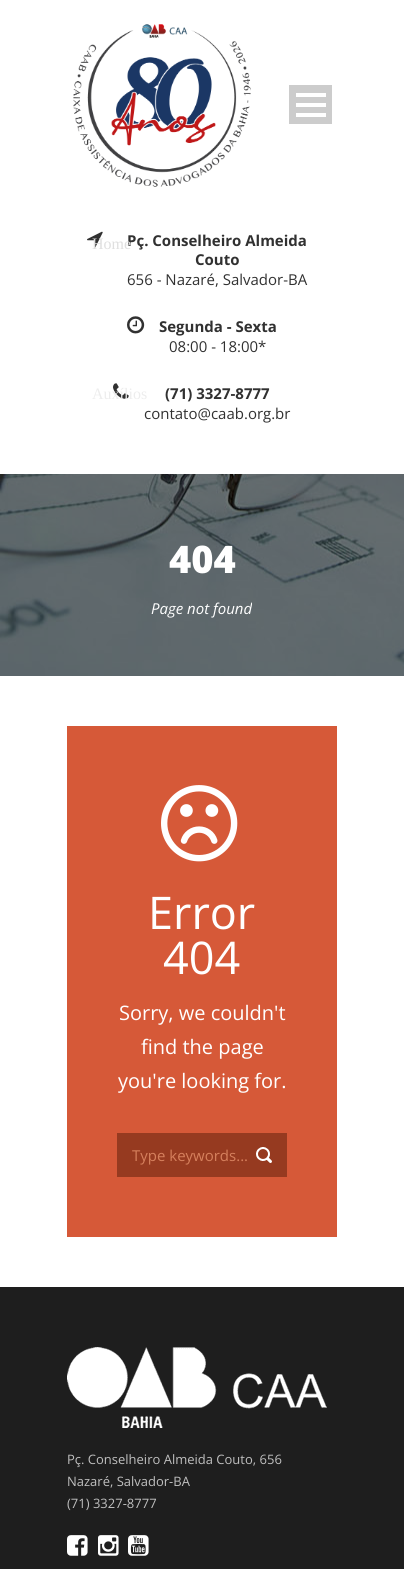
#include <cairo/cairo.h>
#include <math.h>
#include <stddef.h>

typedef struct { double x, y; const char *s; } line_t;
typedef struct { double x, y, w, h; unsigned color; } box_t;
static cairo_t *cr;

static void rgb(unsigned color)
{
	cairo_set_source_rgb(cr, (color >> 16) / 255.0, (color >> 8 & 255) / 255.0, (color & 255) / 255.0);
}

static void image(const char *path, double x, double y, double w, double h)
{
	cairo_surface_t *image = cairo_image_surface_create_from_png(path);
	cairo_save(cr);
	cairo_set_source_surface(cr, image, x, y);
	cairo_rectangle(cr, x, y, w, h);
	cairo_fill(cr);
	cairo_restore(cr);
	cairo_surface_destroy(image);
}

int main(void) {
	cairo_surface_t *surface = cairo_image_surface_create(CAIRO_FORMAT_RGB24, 404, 1569);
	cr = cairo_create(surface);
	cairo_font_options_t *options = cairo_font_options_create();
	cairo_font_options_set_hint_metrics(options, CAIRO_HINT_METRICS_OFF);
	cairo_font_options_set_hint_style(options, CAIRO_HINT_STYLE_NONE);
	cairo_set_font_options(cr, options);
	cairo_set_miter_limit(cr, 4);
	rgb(0xffffff);
	cairo_paint(cr);
	image("img/1.png", 73, 24, 178, 163);
	{
		static const box_t items[] = {
			{289, 85, 43, 39, 0xcccccc},
			{296, 113, 30, 4, 0xffffff},
			{296, 103, 30, 4, 0xffffff},
			{296, 93, 30, 4, 0xffffff},
		};
		for (size_t i = 0; i < sizeof items / sizeof *items; i++) {
			rgb(items[i].color);
			cairo_rectangle(cr, items[i].x, items[i].y, items[i].w, items[i].h);
			cairo_fill(cr);
		}
	}
	image("img/2.png", 87, 231, 16, 17);
	image("img/3.png", 127, 316, 18, 18);
	image("img/4.png", 113, 383, 16, 16);
	image("img/5.png", 0, 474, 404, 202);
	rgb(0xd65938);
	cairo_rectangle(cr, 67, 726, 270, 511);
	cairo_fill(cr);
	image("img/6.png", 161, 785, 77, 77);
	rgb(0x963a20);
	cairo_rectangle(cr, 117, 1133, 170, 44);
	cairo_fill(cr);
	image("img/7.png", 256, 1147, 16, 16);
	rgb(0x1e1e1e);
	cairo_rectangle(cr, 0, 1287, 404, 282);
	cairo_fill(cr);
	image("img/8.png", 67, 1347, 260, 81);
	image("img/9.png", 67, 1535, 21, 21);
	image("img/10.png", 98, 1535, 21, 21);
	image("img/11.png", 128, 1535, 21, 21);
	cairo_select_font_face(cr, "Liberation Serif", CAIRO_FONT_SLANT_NORMAL, CAIRO_FONT_WEIGHT_NORMAL);
	cairo_set_font_size(cr, 16);
	rgb(0xededed);
	cairo_move_to(cr, 92, 399);
	cairo_show_text(cr, "Auxílios");
	cairo_select_font_face(cr, "Open Sans", CAIRO_FONT_SLANT_NORMAL, CAIRO_FONT_WEIGHT_BOLD);
	cairo_set_font_size(cr, 15);
	rgb(0x313131);
	cairo_move_to(cr, 127, 246);
	cairo_show_text(cr, "Pç. Conselheiro Almeida");
	cairo_select_font_face(cr, "Liberation Serif", CAIRO_FONT_SLANT_NORMAL, CAIRO_FONT_WEIGHT_NORMAL);
	cairo_set_font_size(cr, 16);
	rgb(0xdfdfdf);
	cairo_move_to(cr, 92, 249);
	cairo_show_text(cr, "Home");
	cairo_select_font_face(cr, "Open Sans", CAIRO_FONT_SLANT_NORMAL, CAIRO_FONT_WEIGHT_BOLD);
	cairo_set_font_size(cr, 15);
	rgb(0x313131);
	cairo_move_to(cr, 195, 265);
	cairo_show_text(cr, "Couto");
	cairo_select_font_face(cr, "Open Sans", CAIRO_FONT_SLANT_NORMAL, CAIRO_FONT_WEIGHT_NORMAL);
	cairo_move_to(cr, 127, 285);
	cairo_show_text(cr, "656 - Nazaré, Salvador-BA");
	cairo_select_font_face(cr, "Open Sans", CAIRO_FONT_SLANT_NORMAL, CAIRO_FONT_WEIGHT_BOLD);
	cairo_move_to(cr, 159, 332);
	cairo_show_text(cr, "Segunda - Sexta");
	cairo_select_font_face(cr, "Open Sans", CAIRO_FONT_SLANT_NORMAL, CAIRO_FONT_WEIGHT_NORMAL);
	cairo_move_to(cr, 169, 352);
	cairo_show_text(cr, "08:00 - 18:00*");
	cairo_select_font_face(cr, "Open Sans", CAIRO_FONT_SLANT_NORMAL, CAIRO_FONT_WEIGHT_BOLD);
	cairo_move_to(cr, 165, 399);
	cairo_show_text(cr, "(71) 3327-8777");
	cairo_select_font_face(cr, "Open Sans", CAIRO_FONT_SLANT_NORMAL, CAIRO_FONT_WEIGHT_NORMAL);
	cairo_move_to(cr, 144, 419);
	cairo_show_text(cr, "contato@caab.org.br");
	cairo_select_font_face(cr, "Open Sans ExtraBold", CAIRO_FONT_SLANT_NORMAL, CAIRO_FONT_WEIGHT_NORMAL);
	cairo_set_font_size(cr, 38);
	rgb(0xffffff);
	cairo_move_to(cr, 169, 573);
	cairo_show_text(cr, "404");
	cairo_select_font_face(cr, "Open Sans", CAIRO_FONT_SLANT_ITALIC, CAIRO_FONT_WEIGHT_NORMAL);
	cairo_set_font_size(cr, 15);
	cairo_move_to(cr, 151, 614);
	cairo_show_text(cr, "Page not found");
	cairo_select_font_face(cr, "Open Sans", CAIRO_FONT_SLANT_NORMAL, CAIRO_FONT_WEIGHT_NORMAL);
	cairo_set_font_size(cr, 45);
	cairo_move_to(cr, 148, 929);
	cairo_show_text(cr, "Error");
	cairo_move_to(cr, 163, 974);
	cairo_show_text(cr, "404");
	cairo_set_font_size(cr, 20);
	{
		static const line_t items[] = {
			{119, 1020, "Sorry, we couldn't"},
			{141, 1054, "find the page"},
			{118, 1088, "you're looking for."},
		};
		for (size_t i = 0; i < sizeof items / sizeof *items; i++) {
			cairo_move_to(cr, items[i].x, items[i].y);
			cairo_show_text(cr, items[i].s);
		}
	}
	cairo_set_font_size(cr, 15);
	rgb(0xd57f5c);
	cairo_move_to(cr, 132, 1161);
	cairo_show_text(cr, "Type keywords...");
	cairo_set_font_size(cr, 13);
	rgb(0xbfbfbf);
	{
		static const line_t items[] = {
			{67, 1464, "Pç. Conselheiro Almeida Couto, 656"},
			{67, 1486, "Nazaré, Salvador-BA"},
			{67, 1508, "(71) 3327-8777"},
		};
		for (size_t i = 0; i < sizeof items / sizeof *items; i++) {
			cairo_move_to(cr, items[i].x, items[i].y);
			cairo_show_text(cr, items[i].s);
		}
	}
	cairo_surface_write_to_png(surface, "page.png");
	cairo_font_options_destroy(options);
	cairo_destroy(cr);
	cairo_surface_destroy(surface);
	return 0;
}
